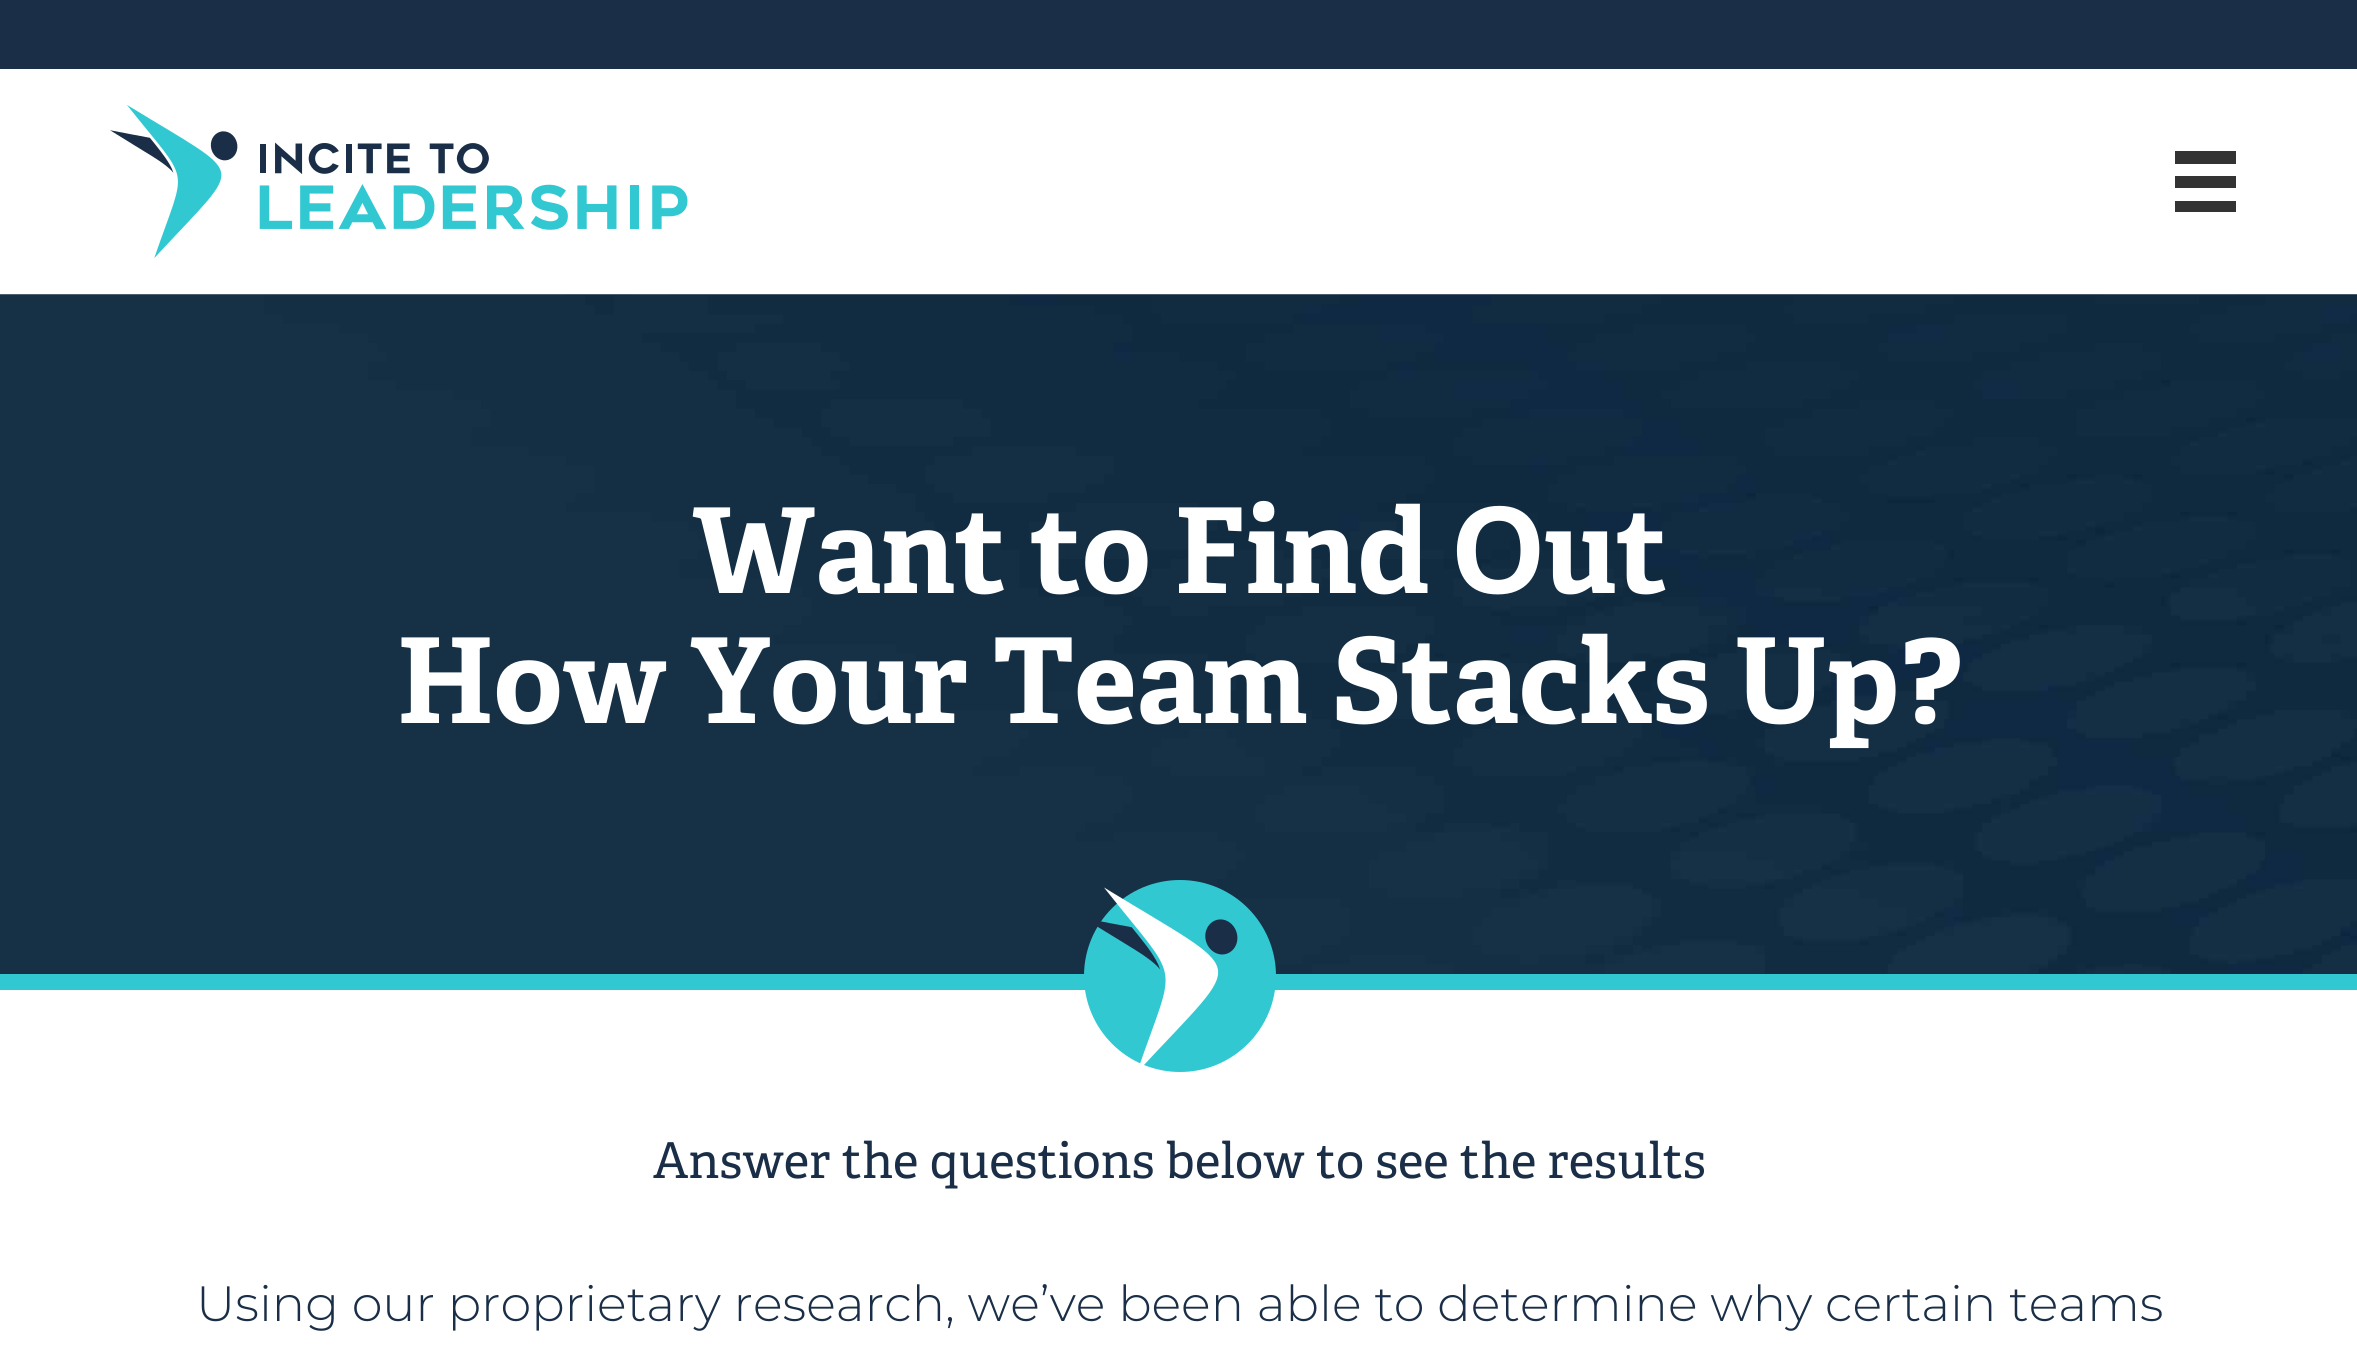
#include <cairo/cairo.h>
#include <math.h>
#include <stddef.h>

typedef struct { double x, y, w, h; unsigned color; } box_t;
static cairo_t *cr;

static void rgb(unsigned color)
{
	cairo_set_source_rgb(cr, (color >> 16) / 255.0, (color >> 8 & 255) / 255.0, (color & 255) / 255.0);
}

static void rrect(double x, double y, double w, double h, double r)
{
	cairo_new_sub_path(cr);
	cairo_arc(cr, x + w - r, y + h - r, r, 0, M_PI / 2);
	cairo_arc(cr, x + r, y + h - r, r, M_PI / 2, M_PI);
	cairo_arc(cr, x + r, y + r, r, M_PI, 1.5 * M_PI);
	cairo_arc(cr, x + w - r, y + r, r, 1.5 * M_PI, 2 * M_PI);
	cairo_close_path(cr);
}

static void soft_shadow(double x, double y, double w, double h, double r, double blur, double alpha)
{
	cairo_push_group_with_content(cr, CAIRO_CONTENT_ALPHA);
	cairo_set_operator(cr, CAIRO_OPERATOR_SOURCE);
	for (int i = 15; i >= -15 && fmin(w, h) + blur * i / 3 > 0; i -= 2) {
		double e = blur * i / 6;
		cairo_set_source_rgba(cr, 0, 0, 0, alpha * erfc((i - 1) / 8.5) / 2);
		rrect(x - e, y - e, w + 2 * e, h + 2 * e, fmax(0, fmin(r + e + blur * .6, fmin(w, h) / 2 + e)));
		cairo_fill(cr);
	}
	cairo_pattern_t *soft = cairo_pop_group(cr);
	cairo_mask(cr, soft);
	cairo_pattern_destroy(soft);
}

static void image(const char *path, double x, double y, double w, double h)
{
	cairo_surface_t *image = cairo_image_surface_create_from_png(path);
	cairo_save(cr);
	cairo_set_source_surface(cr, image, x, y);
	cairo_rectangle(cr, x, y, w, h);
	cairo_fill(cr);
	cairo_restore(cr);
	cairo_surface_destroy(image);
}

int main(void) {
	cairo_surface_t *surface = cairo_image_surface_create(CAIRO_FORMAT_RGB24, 2357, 1359);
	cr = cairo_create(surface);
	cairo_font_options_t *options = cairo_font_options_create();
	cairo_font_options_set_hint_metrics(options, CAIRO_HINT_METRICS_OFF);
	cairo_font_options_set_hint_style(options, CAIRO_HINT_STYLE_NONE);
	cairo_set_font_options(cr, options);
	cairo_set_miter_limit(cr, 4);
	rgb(0xffffff);
	cairo_paint(cr);
	cairo_save(cr);
	cairo_rectangle(cr, 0, 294, 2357, 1);
	cairo_clip(cr);
	rgb(0x000000);
	soft_shadow(0, 3, 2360, 294, 0, 4, 0.08);
	cairo_restore(cr);
	rgb(0x1a2f47);
	cairo_rectangle(cr, 0, 0, 2357, 69);
	cairo_fill(cr);
	image("img/1.png", 110, 105, 578, 153);
	{
		static const box_t items[] = {
			{2175, 151, 61, 13, 0x333333},
			{2175, 176, 61, 12, 0x333333},
			{2175, 201, 61, 11, 0x333333},
		};
		for (size_t i = 0; i < sizeof items / sizeof *items; i++) {
			rgb(items[i].color);
			cairo_rectangle(cr, items[i].x, items[i].y, items[i].w, items[i].h);
			cairo_fill(cr);
		}
	}
	image("img/2.png", 0, 294, 2357, 680);
	rgb(0x32c8d2);
	cairo_rectangle(cr, 0, 974, 2357, 16);
	cairo_fill(cr);
	image("img/3.png", 1084, 880, 192, 192);
	cairo_select_font_face(cr, "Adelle", CAIRO_FONT_SLANT_NORMAL, CAIRO_FONT_WEIGHT_BOLD);
	cairo_set_font_size(cr, 118.25);
	rgb(0xffffff);
	cairo_move_to(cr, 692, 593);
	cairo_show_text(cr, "Want to Find Out");
	cairo_move_to(cr, 397, 723);
	cairo_show_text(cr, "How Your Team Stacks Up?");
	cairo_select_font_face(cr, "Adelle", CAIRO_FONT_SLANT_NORMAL, CAIRO_FONT_WEIGHT_NORMAL);
	cairo_set_font_size(cr, 49.5);
	rgb(0x1a2f47);
	cairo_move_to(cr, 653, 1178);
	cairo_show_text(cr, "Answer the questions below to see the results");
	cairo_select_font_face(cr, "Montserrat Light", CAIRO_FONT_SLANT_NORMAL, CAIRO_FONT_WEIGHT_NORMAL);
	cairo_move_to(cr, 196, 1321);
	cairo_show_text(cr, "Using our proprietary research, we’ve been able to determine why certain teams");
	cairo_surface_write_to_png(surface, "page.png");
	cairo_font_options_destroy(options);
	cairo_destroy(cr);
	cairo_surface_destroy(surface);
	return 0;
}
